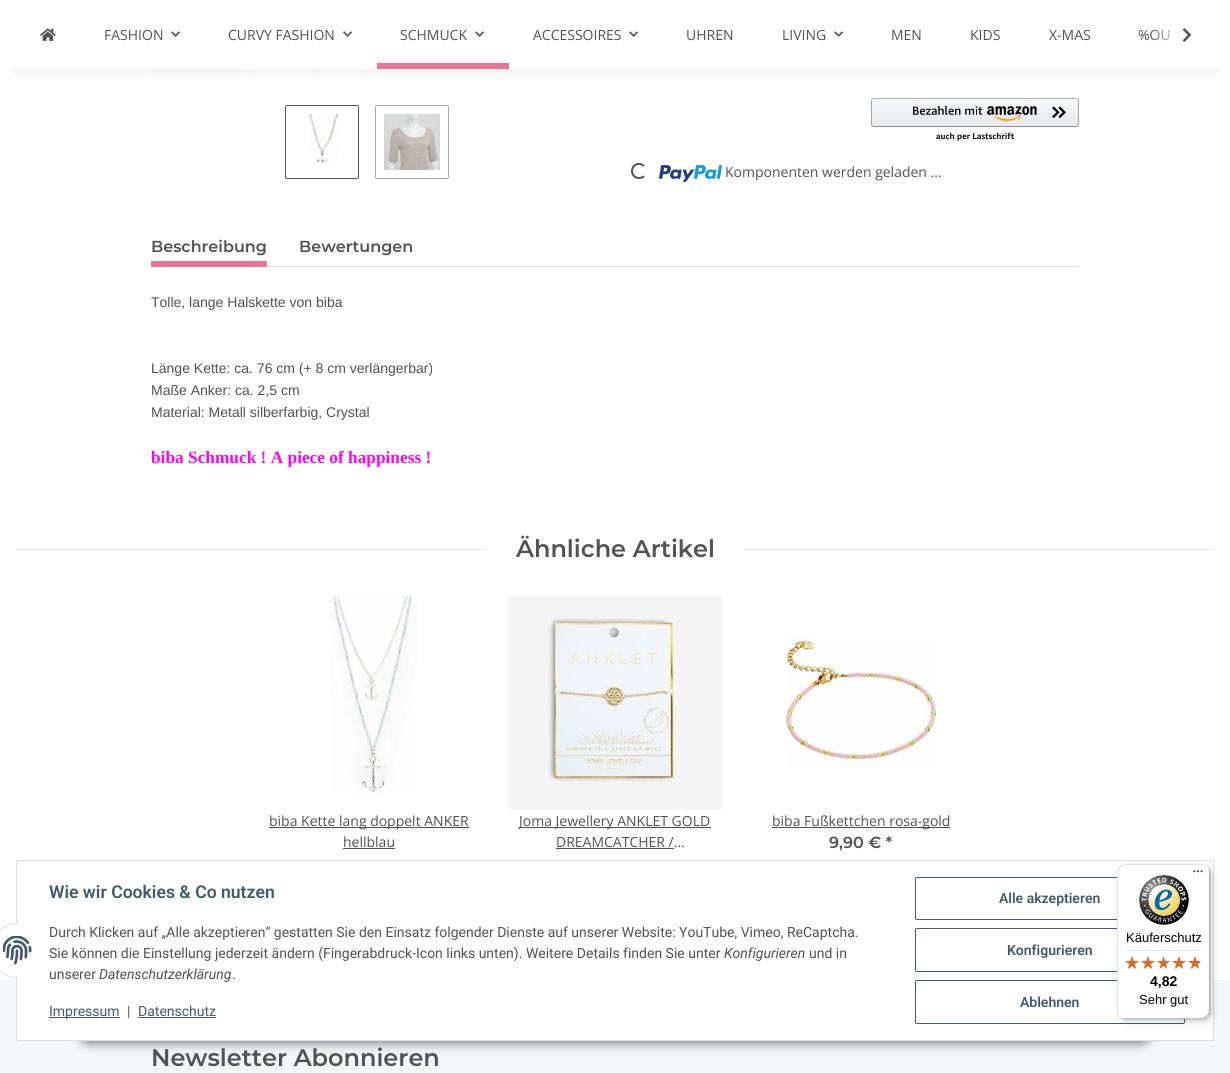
#include <cairo/cairo.h>
#include <math.h>
#include <stddef.h>

typedef struct { double x, y; const char *s; } line_t;
typedef struct { double x, y, w, h; unsigned color; } box_t;
static cairo_t *cr;

static void rgb(unsigned color)
{
	cairo_set_source_rgb(cr, (color >> 16) / 255.0, (color >> 8 & 255) / 255.0, (color & 255) / 255.0);
}

static void rrect(double x, double y, double w, double h, double r)
{
	cairo_new_sub_path(cr);
	cairo_arc(cr, x + w - r, y + h - r, r, 0, M_PI / 2);
	cairo_arc(cr, x + r, y + h - r, r, M_PI / 2, M_PI);
	cairo_arc(cr, x + r, y + r, r, M_PI, 1.5 * M_PI);
	cairo_arc(cr, x + w - r, y + r, r, 1.5 * M_PI, 2 * M_PI);
	cairo_close_path(cr);
}

static void soft_shadow(double x, double y, double w, double h, double r, double blur, double alpha)
{
	cairo_push_group_with_content(cr, CAIRO_CONTENT_ALPHA);
	cairo_set_operator(cr, CAIRO_OPERATOR_SOURCE);
	for (int i = 15; i >= -15 && fmin(w, h) + blur * i / 3 > 0; i -= 2) {
		double e = blur * i / 6;
		cairo_set_source_rgba(cr, 0, 0, 0, alpha * erfc((i - 1) / 8.5) / 2);
		rrect(x - e, y - e, w + 2 * e, h + 2 * e, fmax(0, fmin(r + e + blur * .6, fmin(w, h) / 2 + e)));
		cairo_fill(cr);
	}
	cairo_pattern_t *soft = cairo_pop_group(cr);
	cairo_mask(cr, soft);
	cairo_pattern_destroy(soft);
}

static void image(const char *path, double x, double y, double w, double h)
{
	cairo_surface_t *image = cairo_image_surface_create_from_png(path);
	cairo_save(cr);
	cairo_set_source_surface(cr, image, x, y);
	cairo_rectangle(cr, x, y, w, h);
	cairo_fill(cr);
	cairo_restore(cr);
	cairo_surface_destroy(image);
}

int main(void) {
	cairo_surface_t *surface = cairo_image_surface_create(CAIRO_FORMAT_RGB24, 1230, 1073);
	cr = cairo_create(surface);
	cairo_font_options_t *options = cairo_font_options_create();
	cairo_font_options_set_hint_metrics(options, CAIRO_HINT_METRICS_OFF);
	cairo_font_options_set_hint_style(options, CAIRO_HINT_STYLE_NONE);
	cairo_set_font_options(cr, options);
	cairo_set_miter_limit(cr, 4);
	cairo_pattern_t *gradient;
	rgb(0xf5f7fa);
	cairo_paint(cr);
	rgb(0xffffff);
	cairo_rectangle(cr, 0, 69, 1230, 911);
	cairo_fill(cr);
	image("img/4.png", 151, 69, 313, 4);
	rgb(0x000000);
	soft_shadow(12, 28, 1206, 45, 0, 4.5, 0.06);
	rgb(0xffffff);
	cairo_rectangle(cr, 0, 0, 1230, 69);
	cairo_fill(cr);
	image("img/1.png", 40, 28, 16, 13);
	image("img/2.png", 171, 31, 9, 6);
	image("img/2.png", 343, 31, 9, 6);
	image("img/2.png", 475, 31, 9, 6);
	rgb(0xed7298);
	cairo_rectangle(cr, 377, 63, 132, 6);
	cairo_fill(cr);
	image("img/2.png", 629, 31, 9, 6);
	image("img/2.png", 834, 31, 9, 6);
	image("img/3.png", 1182, 28, 10, 14);
	rrect(285.5, 105.5, 73, 73, 1.5);
	rgb(0x525252);
	cairo_set_line_width(cr, 1);
	cairo_stroke(cr);
	image("img/5.png", 309, 114, 30, 49);
	rrect(375.5, 105.5, 73, 73, 1.5);
	rgb(0xa9a9a9);
	cairo_stroke(cr);
	image("img/6.png", 384, 114, 56, 56);
	cairo_save(cr);
	rrect(871, 98, 208, 29, 3);
	cairo_clip(cr);
	gradient = cairo_pattern_create_linear(975, 99, 975, 126);
	cairo_pattern_add_color_stop_rgba(gradient, 0, 0.969, 0.973, 0.98, 1);
	cairo_pattern_add_color_stop_rgba(gradient, 1, 0.906, 0.914, 0.925, 1);
	cairo_set_source(cr, gradient);
	cairo_pattern_destroy(gradient);
	cairo_rectangle(cr, 871, 99, 208, 27);
	cairo_fill(cr);
	cairo_restore(cr);
	rgb(0xfafbfc);
	cairo_new_path(cr);
	cairo_move_to(cr, 874, 100);
	cairo_line_to(cr, 1076, 100);
	cairo_line_to(cr, 1078, 101);
	cairo_line_to(cr, 1078, 102);
	cairo_curve_to(cr, 1078, 101, 1078, 99, 1076, 99);
	cairo_line_to(cr, 874, 99);
	cairo_curve_to(cr, 872, 99, 872, 101, 872, 102);
	cairo_curve_to(cr, 872, 101, 873, 100, 874, 100);
	cairo_close_path(cr);
	cairo_fill(cr);
	cairo_new_path(cr);
	cairo_move_to(cr, 872, 99);
	cairo_line_to(cr, 874, 98.5);
	cairo_line_to(cr, 1076, 98.5);
	cairo_line_to(cr, 1078, 99);
	rgb(0xadb1b8);
	cairo_stroke(cr);
	cairo_new_path(cr);
	cairo_move_to(cr, 1078, 99);
	cairo_curve_to(cr, 1078, 99.5, 1078.5, 100.5, 1078.5, 101);
	cairo_line_to(cr, 1078.5, 124);
	cairo_curve_to(cr, 1078.5, 124.5, 1078, 125.5, 1078, 126);
	rgb(0xa2a6ac);
	cairo_stroke(cr);
	cairo_new_path(cr);
	cairo_move_to(cr, 1078, 126);
	cairo_line_to(cr, 1076, 126.5);
	cairo_line_to(cr, 874, 126.5);
	cairo_line_to(cr, 872, 126);
	rgb(0x8d9096);
	cairo_stroke(cr);
	cairo_new_path(cr);
	cairo_move_to(cr, 872, 126);
	cairo_curve_to(cr, 872, 125.5, 871.5, 124.5, 871.5, 124);
	cairo_line_to(cr, 871.5, 101);
	cairo_curve_to(cr, 871.5, 100.5, 872, 99.5, 872, 99);
	rgb(0xa2a6ac);
	cairo_stroke(cr);
	image("img/7.png", 913, 106, 124, 16);
	image("img/8.png", 1052, 106, 14, 13);
	image("img/9.png", 936, 132, 78, 9);
	cairo_new_path(cr);
	cairo_move_to(cr, 644, 176);
	cairo_curve_to(cr, 642.5, 177.5, 641, 178, 639, 178);
	cairo_curve_to(cr, 630.5, 178, 629.5, 166, 637.5, 164);
	cairo_curve_to(cr, 640, 163.5, 642.5, 164.5, 644, 166);
	rgb(0x525252);
	cairo_set_line_width(cr, 2);
	cairo_stroke(cr);
	image("img/10.png", 659, 165, 63, 17);
	{
		static const box_t items[] = {
			{267, 266, 812, 1, 0xdee2e6},
			{151, 261, 116, 6, 0xed7298},
			{16, 549, 470, 1, 0xe6e6e6},
			{744, 549, 470, 1, 0xe6e6e6},
		};
		for (size_t i = 0; i < sizeof items / sizeof *items; i++) {
			rgb(items[i].color);
			cairo_rectangle(cr, items[i].x, items[i].y, items[i].w, items[i].h);
			cairo_fill(cr);
		}
	}
	image("img/11.png", 330, 596, 88, 198);
	rgb(0x525252);
	cairo_rectangle(cr, 269, 827, 200, 1);
	cairo_fill(cr);
	cairo_rectangle(cr, 343, 848, 52, 1);
	cairo_fill(cr);
	image("img/12.png", 508, 596, 214, 214);
	cairo_rectangle(cr, 519, 827, 192, 1);
	cairo_fill(cr);
	cairo_rectangle(cr, 556, 848, 118, 1);
	cairo_fill(cr);
	image("img/13.png", 786, 638, 151, 130);
	cairo_rectangle(cr, 772, 827, 178, 1);
	cairo_fill(cr);
	rgb(0x000000);
	soft_shadow(77, 1012, 1076, 32, 16, 5, 0.45);
	rgb(0xffffff);
	rrect(16.5, 860.5, 1197, 180, 1.5);
	cairo_fill_preserve(cr);
	rgb(0xdddddd);
	cairo_set_line_width(cr, 1);
	cairo_stroke(cr);
	rgb(0xffffff);
	cairo_arc(cr, 17.5, 950.5, 27, 0, 2 * M_PI);
	cairo_fill_preserve(cr);
	rgb(0xdddddd);
	cairo_stroke(cr);
	rgb(0xffffff);
	cairo_rectangle(cr, 18, 923, 27, 55);
	cairo_fill(cr);
	image("img/14.png", 3, 936, 29, 29);
	rgb(0x435a6b);
	cairo_rectangle(cr, 49, 1017, 71, 1);
	cairo_fill(cr);
	cairo_rectangle(cr, 138, 1017, 78, 1);
	cairo_fill(cr);
	rrect(915.5, 877.5, 269, 42, 1.5);
	cairo_stroke(cr);
	rrect(915.5, 928.5, 269, 43, 1.5);
	cairo_stroke(cr);
	rrect(915.5, 980.5, 269, 43, 1.5);
	cairo_stroke(cr);
	rgb(0x000000);
	soft_shadow(1120, 867, 93, 155, 8, 4, 0.15);
	soft_shadow(1118, 865, 93, 155, 8, 1, 0.15);
	rgb(0xffffff);
	rrect(1117, 864, 93, 155, 8);
	cairo_fill(cr);
	rgb(0xe5e5e5);
	cairo_new_path(cr);
	cairo_move_to(cr, 1126, 865);
	cairo_line_to(cr, 1203, 865);
	cairo_curve_to(cr, 1205, 865, 1207, 866, 1209, 868);
	cairo_curve_to(cr, 1207, 866, 1205, 864, 1202, 864);
	cairo_line_to(cr, 1125, 864);
	cairo_curve_to(cr, 1121, 864, 1117, 868, 1117, 872);
	cairo_line_to(cr, 1117, 1011);
	cairo_curve_to(cr, 1117, 1014, 1119, 1016, 1121, 1018);
	cairo_curve_to(cr, 1119, 1016, 1118, 1014, 1118, 1012);
	cairo_line_to(cr, 1118, 873);
	cairo_curve_to(cr, 1118, 869, 1122, 865, 1126, 865);
	cairo_close_path(cr);
	cairo_fill(cr);
	rgb(0xcccccc);
	cairo_new_path(cr);
	cairo_move_to(cr, 1118, 1015);
	cairo_curve_to(cr, 1120, 1017, 1122, 1019, 1125, 1019);
	cairo_line_to(cr, 1202, 1019);
	cairo_curve_to(cr, 1206, 1019, 1210, 1015, 1210, 1011);
	cairo_line_to(cr, 1210, 872);
	cairo_curve_to(cr, 1210, 869, 1208, 867, 1206, 865);
	cairo_curve_to(cr, 1208, 867, 1209, 869, 1209, 871);
	cairo_line_to(cr, 1209, 1010);
	cairo_curve_to(cr, 1209, 1014, 1205, 1018, 1201, 1018);
	cairo_line_to(cr, 1124, 1018);
	cairo_curve_to(cr, 1122, 1018, 1120, 1017, 1118, 1015);
	cairo_close_path(cr);
	cairo_fill(cr);
	cairo_set_source_rgba(cr, 0.196, 0.196, 0.196, 0.2);
	cairo_new_path(cr);
	cairo_move_to(cr, 1119, 1016);
	cairo_curve_to(cr, 1120, 1018, 1123, 1019, 1125, 1019);
	cairo_line_to(cr, 1202, 1019);
	cairo_curve_to(cr, 1206, 1019, 1210, 1015, 1210, 1011);
	cairo_line_to(cr, 1210, 872);
	cairo_curve_to(cr, 1210, 870, 1209, 867, 1207, 866);
	cairo_curve_to(cr, 1208, 867, 1209, 869, 1209, 871);
	cairo_line_to(cr, 1209, 1010);
	cairo_curve_to(cr, 1209, 1015, 1206, 1018, 1201, 1018);
	cairo_line_to(cr, 1124, 1018);
	cairo_curve_to(cr, 1122, 1018, 1120, 1017, 1119, 1016);
	cairo_close_path(cr);
	cairo_fill(cr);
	image("img/15.png", 1193, 870, 10, 3);
	cairo_set_source_rgba(cr, 1, 1, 1, 0.3);
	cairo_new_path(cr);
	cairo_move_to(cr, 1119, 1016);
	cairo_curve_to(cr, 1120, 1018, 1123, 1019, 1125, 1019);
	cairo_line_to(cr, 1202, 1019);
	cairo_curve_to(cr, 1206, 1019, 1210, 1015, 1210, 1011);
	cairo_line_to(cr, 1210, 1010);
	cairo_curve_to(cr, 1210, 1015, 1206, 1018, 1202, 1018);
	cairo_line_to(cr, 1124, 1018);
	cairo_curve_to(cr, 1122, 1018, 1120, 1017, 1119, 1016);
	cairo_close_path(cr);
	cairo_fill(cr);
	image("img/16.png", 1139, 875, 50, 50);
	rgb(0xe5e5e5);
	cairo_rectangle(cr, 1125, 950, 77, 1);
	cairo_fill(cr);
	image("img/17.png", 1125, 956, 14, 13);
	image("img/17.png", 1141, 956, 14, 13);
	image("img/18.png", 1157, 956, 13, 13);
	image("img/17.png", 1172, 956, 14, 13);
	image("img/17.png", 1188, 956, 14, 13);
	image("img/19.png", 1125, 956, 14, 13);
	image("img/19.png", 1141, 956, 14, 13);
	image("img/20.png", 1157, 956, 13, 13);
	image("img/19.png", 1172, 956, 14, 13);
	image("img/21.png", 1188, 956, 12, 13);
	cairo_select_font_face(cr, "Open Sans", CAIRO_FONT_SLANT_NORMAL, CAIRO_FONT_WEIGHT_NORMAL);
	cairo_set_font_size(cr, 14);
	rgb(0x525252);
	{
		static const line_t items[] = {
			{104, 40, "FASHION"},
			{228, 40, "CURVY FASHION"},
			{400, 40, "SCHMUCK"},
			{533, 40, "ACCESSOIRES"},
			{686, 40, "UHREN"},
			{782, 40, "LIVING"},
			{891, 40, "MEN"},
			{970, 40, "KIDS"},
			{1049, 40, "X-MAS"},
			{1138, 40, "%OU"},
		};
		for (size_t i = 0; i < sizeof items / sizeof *items; i++) {
			cairo_move_to(cr, items[i].x, items[i].y);
			cairo_show_text(cr, items[i].s);
		}
	}
	gradient = cairo_pattern_create_linear(1150, 35, 1198, 35);
	cairo_pattern_add_color_stop_rgba(gradient, 0, 1, 1, 1, 0.01);
	cairo_pattern_add_color_stop_rgba(gradient, 0.7, 1, 1, 1, 1);
	cairo_set_source(cr, gradient);
	cairo_pattern_destroy(gradient);
	cairo_rectangle(cr, 1151, 29, 19, 12);
	cairo_fill(cr);
	rgb(0x525252);
	cairo_move_to(cr, 725, 177);
	cairo_show_text(cr, "Komponenten werden geladen ...");
	cairo_select_font_face(cr, "Montserrat SemiBold", CAIRO_FONT_SLANT_NORMAL, CAIRO_FONT_WEIGHT_NORMAL);
	cairo_set_font_size(cr, 16);
	cairo_move_to(cr, 151, 252);
	cairo_show_text(cr, "Beschreibung");
	cairo_move_to(cr, 299, 252);
	cairo_show_text(cr, "Bewertungen");
	cairo_select_font_face(cr, "Liberation Sans", CAIRO_FONT_SLANT_NORMAL, CAIRO_FONT_WEIGHT_NORMAL);
	cairo_set_font_size(cr, 14);
	{
		static const line_t items[] = {
			{151, 307, "Tolle, lange Halskette von biba"},
			{151, 373, "Länge Kette: ca. 76 cm (+ 8 cm verlängerbar)"},
			{151, 395, "Maße Anker: ca. 2,5 cm"},
			{151, 417, "Material: Metall silberfarbig, Crystal"},
		};
		for (size_t i = 0; i < sizeof items / sizeof *items; i++) {
			cairo_move_to(cr, items[i].x, items[i].y);
			cairo_show_text(cr, items[i].s);
		}
	}
	cairo_select_font_face(cr, "Liberation Serif", CAIRO_FONT_SLANT_NORMAL, CAIRO_FONT_WEIGHT_BOLD);
	cairo_set_font_size(cr, 17.3);
	rgb(0xff00ff);
	cairo_move_to(cr, 151, 463);
	cairo_show_text(cr, "biba Schmuck ! A piece of happiness !");
	cairo_select_font_face(cr, "Montserrat SemiBold", CAIRO_FONT_SLANT_NORMAL, CAIRO_FONT_WEIGHT_NORMAL);
	cairo_set_font_size(cr, 24);
	rgb(0x525252);
	cairo_move_to(cr, 516, 557);
	cairo_show_text(cr, "Ähnliche Artikel");
	cairo_select_font_face(cr, "Open Sans", CAIRO_FONT_SLANT_NORMAL, CAIRO_FONT_WEIGHT_NORMAL);
	cairo_set_font_size(cr, 14);
	{
		static const line_t items[] = {
			{269, 826, "biba Kette lang doppelt ANKER"},
			{343, 847, "hellblau"},
			{519, 826, "Joma Jewellery ANKLET GOLD"},
			{556, 847, "DREAMCATCHER /…"},
			{772, 826, "biba Fußkettchen rosa-gold"},
		};
		for (size_t i = 0; i < sizeof items / sizeof *items; i++) {
			cairo_move_to(cr, items[i].x, items[i].y);
			cairo_show_text(cr, items[i].s);
		}
	}
	cairo_select_font_face(cr, "Montserrat SemiBold", CAIRO_FONT_SLANT_NORMAL, CAIRO_FONT_WEIGHT_NORMAL);
	cairo_set_font_size(cr, 16);
	cairo_move_to(cr, 829, 848);
	cairo_show_text(cr, "9,90 € *");
	cairo_select_font_face(cr, "Roboto SemiBold", CAIRO_FONT_SLANT_NORMAL, CAIRO_FONT_WEIGHT_NORMAL);
	cairo_set_font_size(cr, 17.6);
	rgb(0x435a6b);
	cairo_move_to(cr, 49, 898);
	cairo_show_text(cr, "Wie wir Cookies & Co nutzen");
	cairo_select_font_face(cr, "Roboto", CAIRO_FONT_SLANT_NORMAL, CAIRO_FONT_WEIGHT_NORMAL);
	cairo_set_font_size(cr, 14);
	rgb(0x525252);
	cairo_move_to(cr, 49, 937);
	cairo_show_text(cr, "Durch Klicken auf „Alle akzeptieren“ gestatten Sie den Einsatz folgender Dienste auf unserer Website: YouTube, Vimeo, ReCaptcha.");
	cairo_move_to(cr, 49, 958);
	cairo_show_text(cr, "Sie können die Einstellung jederzeit ändern (Fingerabdruck-Icon links unten). Weitere Details finden Sie unter");
	cairo_select_font_face(cr, "Roboto", CAIRO_FONT_SLANT_ITALIC, CAIRO_FONT_WEIGHT_NORMAL);
	cairo_move_to(cr, 724, 958);
	cairo_show_text(cr, "Konfigurieren");
	cairo_select_font_face(cr, "Roboto", CAIRO_FONT_SLANT_NORMAL, CAIRO_FONT_WEIGHT_NORMAL);
	cairo_move_to(cr, 809, 958);
	cairo_show_text(cr, "und in");
	cairo_move_to(cr, 49, 979);
	cairo_show_text(cr, "unserer");
	cairo_select_font_face(cr, "Roboto", CAIRO_FONT_SLANT_ITALIC, CAIRO_FONT_WEIGHT_NORMAL);
	cairo_move_to(cr, 99, 979);
	cairo_show_text(cr, "Datenschutzerklärung");
	cairo_select_font_face(cr, "Roboto", CAIRO_FONT_SLANT_NORMAL, CAIRO_FONT_WEIGHT_NORMAL);
	cairo_move_to(cr, 232, 979);
	cairo_show_text(cr, ".");
	rgb(0x435a6b);
	cairo_move_to(cr, 49, 1016);
	cairo_show_text(cr, "Impressum");
	rgb(0x525252);
	cairo_move_to(cr, 127, 1016);
	cairo_show_text(cr, "|");
	rgb(0x435a6b);
	cairo_move_to(cr, 138, 1016);
	cairo_show_text(cr, "Datenschutz");
	cairo_select_font_face(cr, "Roboto SemiBold", CAIRO_FONT_SLANT_NORMAL, CAIRO_FONT_WEIGHT_NORMAL);
	{
		static const line_t items[] = {
			{999, 903, "Alle akzeptieren"},
			{1007, 955, "Konfigurieren"},
			{1020, 1007, "Ablehnen"},
		};
		for (size_t i = 0; i < sizeof items / sizeof *items; i++) {
			cairo_move_to(cr, items[i].x, items[i].y);
			cairo_show_text(cr, items[i].s);
		}
	}
	cairo_select_font_face(cr, "Liberation Sans", CAIRO_FONT_SLANT_NORMAL, CAIRO_FONT_WEIGHT_NORMAL);
	cairo_set_font_size(cr, 13);
	rgb(0x000000);
	cairo_move_to(cr, 1126, 942);
	cairo_show_text(cr, "Käuferschutz");
	cairo_select_font_face(cr, "Liberation Sans", CAIRO_FONT_SLANT_NORMAL, CAIRO_FONT_WEIGHT_BOLD);
	cairo_set_font_size(cr, 14);
	cairo_move_to(cr, 1150, 986);
	cairo_show_text(cr, "4,82");
	cairo_select_font_face(cr, "Liberation Sans", CAIRO_FONT_SLANT_NORMAL, CAIRO_FONT_WEIGHT_NORMAL);
	cairo_set_font_size(cr, 13);
	cairo_move_to(cr, 1139, 1004);
	cairo_show_text(cr, "Sehr gut");
	cairo_select_font_face(cr, "Montserrat SemiBold", CAIRO_FONT_SLANT_NORMAL, CAIRO_FONT_WEIGHT_NORMAL);
	cairo_set_font_size(cr, 24);
	rgb(0x525252);
	cairo_move_to(cr, 151, 1066);
	cairo_show_text(cr, "Newsletter Abonnieren");
	cairo_surface_write_to_png(surface, "page.png");
	cairo_font_options_destroy(options);
	cairo_destroy(cr);
	cairo_surface_destroy(surface);
	return 0;
}
